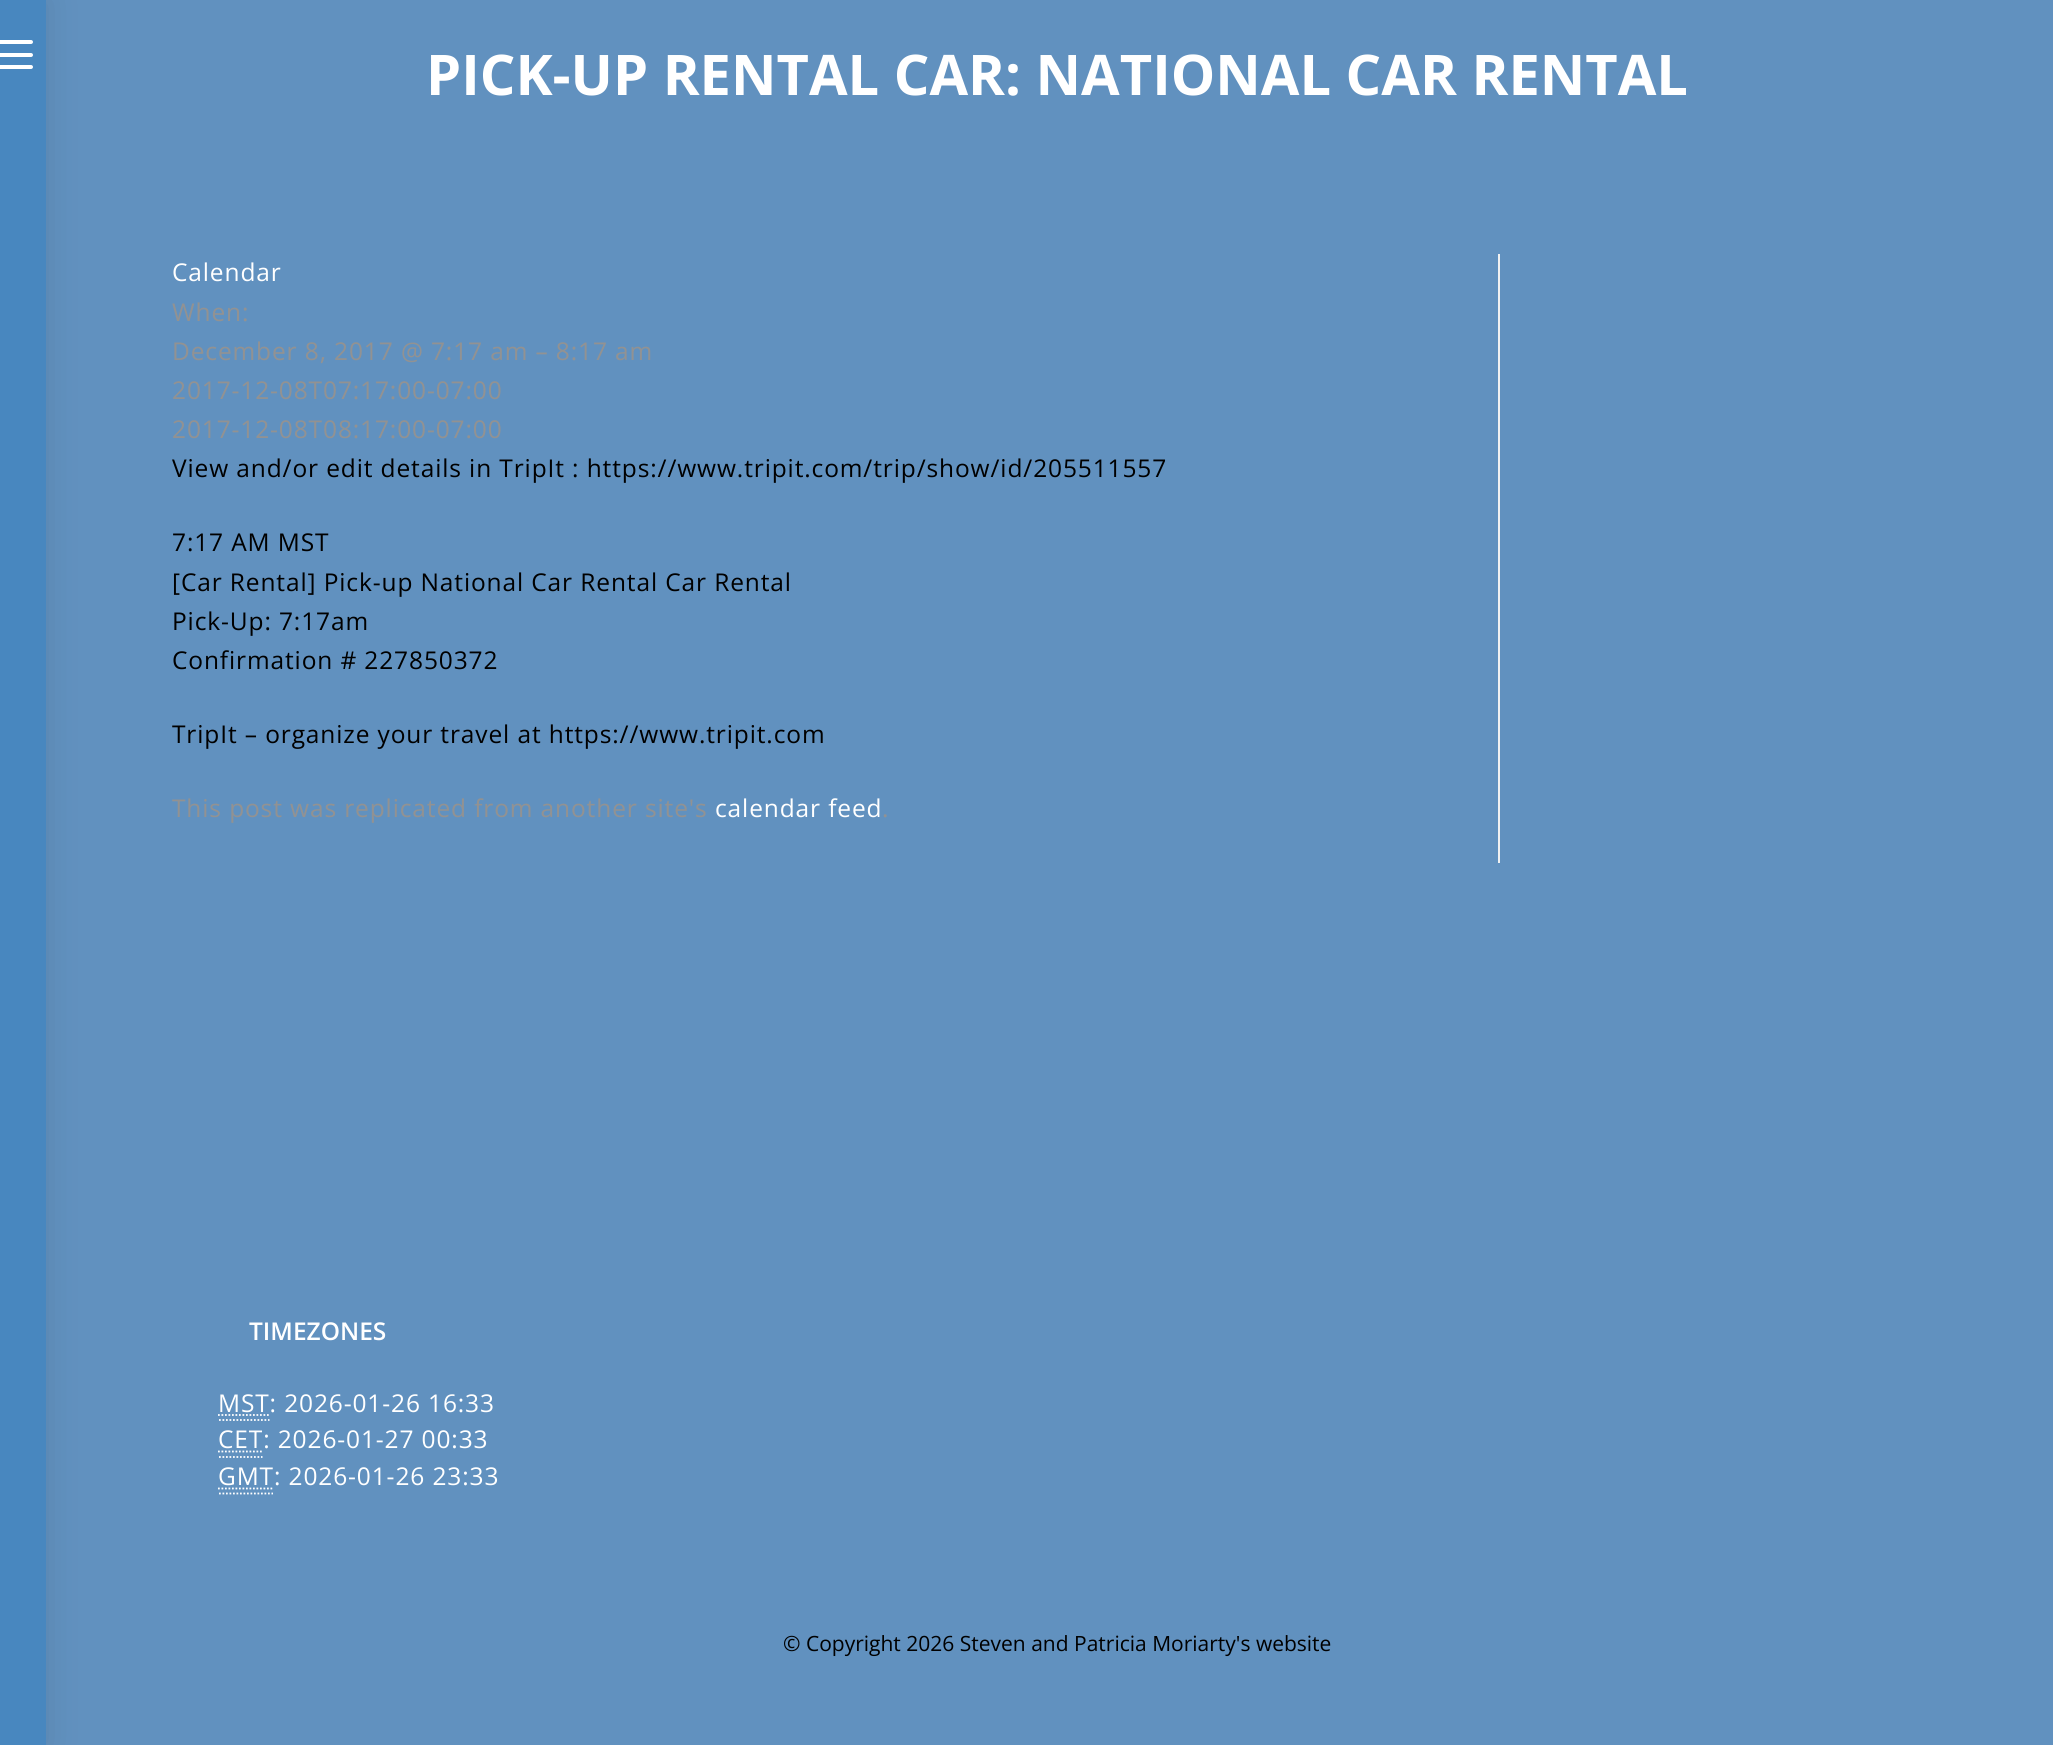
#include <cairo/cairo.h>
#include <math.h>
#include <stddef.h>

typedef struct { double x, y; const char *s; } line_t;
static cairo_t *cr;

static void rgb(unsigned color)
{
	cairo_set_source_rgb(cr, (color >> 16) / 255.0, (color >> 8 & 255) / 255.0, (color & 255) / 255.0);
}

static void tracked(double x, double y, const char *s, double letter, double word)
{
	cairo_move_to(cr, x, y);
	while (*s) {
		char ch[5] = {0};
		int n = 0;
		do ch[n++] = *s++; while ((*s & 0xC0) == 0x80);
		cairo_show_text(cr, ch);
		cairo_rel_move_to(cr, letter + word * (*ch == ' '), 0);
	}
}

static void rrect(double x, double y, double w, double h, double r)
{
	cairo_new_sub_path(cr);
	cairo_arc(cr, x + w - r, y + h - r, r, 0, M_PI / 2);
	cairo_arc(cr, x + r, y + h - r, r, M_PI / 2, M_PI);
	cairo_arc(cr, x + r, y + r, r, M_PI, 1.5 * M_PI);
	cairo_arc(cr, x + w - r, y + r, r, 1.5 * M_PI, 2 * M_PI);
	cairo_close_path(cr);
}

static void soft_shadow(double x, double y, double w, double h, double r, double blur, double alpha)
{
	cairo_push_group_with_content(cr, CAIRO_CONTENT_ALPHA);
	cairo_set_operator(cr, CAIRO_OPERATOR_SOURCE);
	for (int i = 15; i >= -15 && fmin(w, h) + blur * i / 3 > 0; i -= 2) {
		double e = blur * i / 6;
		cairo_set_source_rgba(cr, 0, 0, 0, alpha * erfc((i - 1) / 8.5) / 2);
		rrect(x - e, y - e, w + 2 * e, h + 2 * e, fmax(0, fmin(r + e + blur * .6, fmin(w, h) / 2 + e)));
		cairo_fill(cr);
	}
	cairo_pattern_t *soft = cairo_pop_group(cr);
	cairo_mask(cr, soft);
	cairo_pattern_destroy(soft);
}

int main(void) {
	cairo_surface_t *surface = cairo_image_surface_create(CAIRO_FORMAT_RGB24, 2053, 1745);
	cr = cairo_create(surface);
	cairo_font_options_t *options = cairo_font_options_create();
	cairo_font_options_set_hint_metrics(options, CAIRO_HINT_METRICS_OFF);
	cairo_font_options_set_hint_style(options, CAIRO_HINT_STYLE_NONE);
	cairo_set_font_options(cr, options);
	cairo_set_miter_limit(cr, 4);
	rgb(0x6191bf);
	cairo_paint(cr);
	rgb(0x000000);
	soft_shadow(-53, 0, 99, 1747, 0, 17.5, 0.1);
	rgb(0x4887bf);
	cairo_rectangle(cr, 0, 0, 46, 1745);
	cairo_fill(cr);
	rgb(0xffffff);
	rrect(-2, 53, 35, 4, 2);
	cairo_fill(cr);
	rrect(-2, 40, 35, 4, 2);
	cairo_fill(cr);
	rrect(-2, 65, 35, 4, 2);
	cairo_fill(cr);
	rgb(0xf1f1f1);
	cairo_rectangle(cr, 1498, 254, 2, 609);
	cairo_fill(cr);
	cairo_new_path(cr);
	cairo_move_to(cr, 219, 1420);
	cairo_line_to(cr, 269.5, 1420);
	cairo_move_to(cr, 218, 1415);
	cairo_line_to(cr, 269.5, 1415);
	rgb(0xffffff);
	cairo_set_line_width(cr, 1.8);
	cairo_set_dash(cr, (double[]){1.75, 1.75}, 2, 0);
	cairo_stroke(cr);
	cairo_new_path(cr);
	cairo_move_to(cr, 219, 1457);
	cairo_line_to(cr, 262.5, 1457);
	cairo_move_to(cr, 218, 1451.5);
	cairo_line_to(cr, 263, 1451.5);
	cairo_stroke(cr);
	cairo_new_path(cr);
	cairo_move_to(cr, 219, 1493.5);
	cairo_line_to(cr, 273, 1493.5);
	cairo_move_to(cr, 218, 1488.5);
	cairo_line_to(cr, 274, 1488.5);
	cairo_stroke(cr);
	cairo_select_font_face(cr, "Open Sans", CAIRO_FONT_SLANT_NORMAL, CAIRO_FONT_WEIGHT_BOLD);
	cairo_set_font_size(cr, 56);
	cairo_move_to(cr, 426, 95);
	cairo_show_text(cr, "PICK-UP RENTAL CAR: NATIONAL CAR RENTAL");
	cairo_select_font_face(cr, "Open Sans", CAIRO_FONT_SLANT_NORMAL, CAIRO_FONT_WEIGHT_NORMAL);
	cairo_set_font_size(cr, 24.5);
	tracked(172, 281, "Calendar", 0.88, 0);
	rgb(0x929292);
	{
		static const line_t items[] = {
			{172, 321, "When:"},
			{172, 360, "December 8, 2017 @ 7:17 am – 8:17 am"},
			{172, 399, "2017-12-08T07:17:00-07:00"},
			{172, 438, "2017-12-08T08:17:00-07:00"},
		};
		for (size_t i = 0; i < sizeof items / sizeof *items; i++) {
			tracked(items[i].x, items[i].y, items[i].s, 0.88, 0);
		}
	}
	rgb(0x000000);
	{
		static const line_t items[] = {
			{172, 477, "View and/or edit details in TripIt : https://www.tripit.com/trip/show/id/205511557"},
			{172, 551, "7:17 AM MST"},
			{172, 591, "[Car Rental] Pick-up National Car Rental Car Rental"},
			{172, 630, "Pick-Up: 7:17am"},
			{172, 669, "Confirmation # 227850372"},
			{172, 743, "TripIt – organize your travel at https://www.tripit.com"},
		};
		for (size_t i = 0; i < sizeof items / sizeof *items; i++) {
			tracked(items[i].x, items[i].y, items[i].s, 0.88, 0);
		}
	}
	rgb(0x929292);
	tracked(172, 817, "This post was replicated from another site's", 0.88, 0);
	rgb(0xffffff);
	tracked(715, 817, "calendar feed", 0.88, 0);
	rgb(0x929292);
	tracked(882, 817, ".", 0.88, 0);
	cairo_select_font_face(cr, "Open Sans SemiBold", CAIRO_FONT_SLANT_NORMAL, CAIRO_FONT_WEIGHT_NORMAL);
	rgb(0xffffff);
	cairo_move_to(cr, 249, 1340);
	cairo_show_text(cr, "TIMEZONES");
	cairo_select_font_face(cr, "Open Sans", CAIRO_FONT_SLANT_NORMAL, CAIRO_FONT_WEIGHT_NORMAL);
	{
		static const line_t items[] = {
			{218, 1412, "MST: 2026-01-26 16:33"},
			{218, 1448, "CET: 2026-01-27 00:33"},
			{218, 1485, "GMT: 2026-01-26 23:33"},
		};
		for (size_t i = 0; i < sizeof items / sizeof *items; i++) {
			tracked(items[i].x, items[i].y, items[i].s, 0.88, 0);
		}
	}
	cairo_set_font_size(cr, 21);
	rgb(0x000000);
	cairo_move_to(cr, 783, 1651);
	cairo_show_text(cr, "© Copyright 2026 Steven and Patricia Moriarty's website");
	cairo_surface_write_to_png(surface, "page.png");
	cairo_font_options_destroy(options);
	cairo_destroy(cr);
	cairo_surface_destroy(surface);
	return 0;
}
